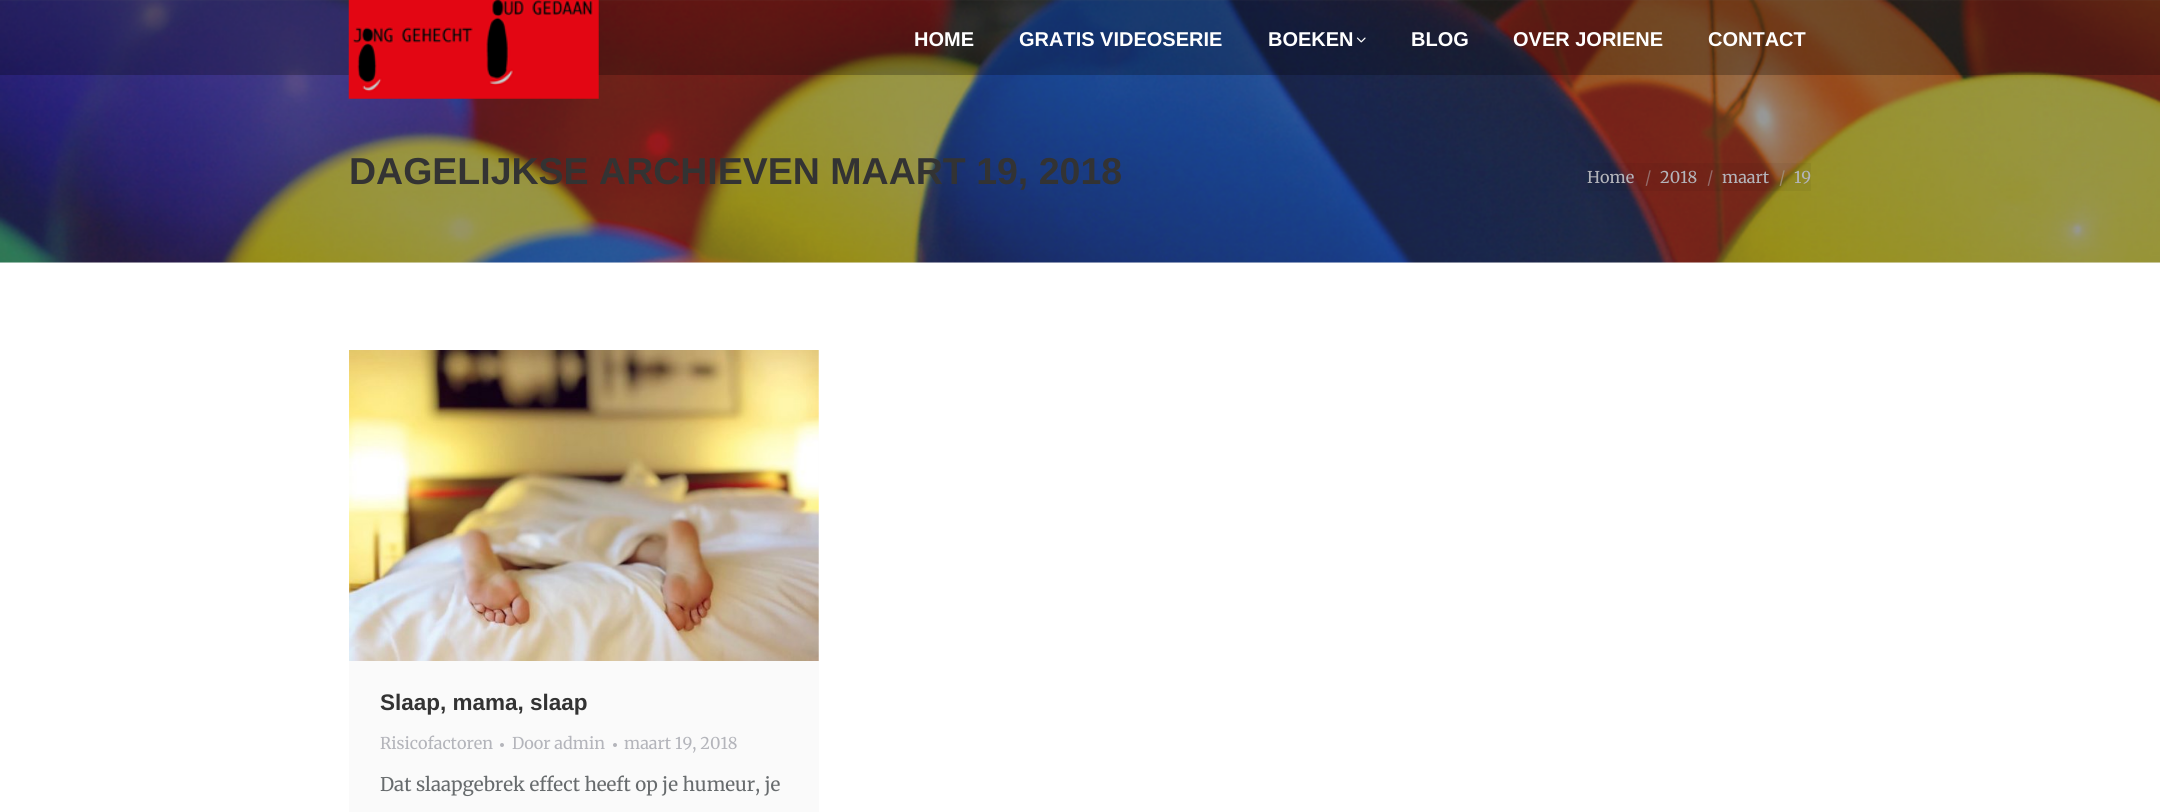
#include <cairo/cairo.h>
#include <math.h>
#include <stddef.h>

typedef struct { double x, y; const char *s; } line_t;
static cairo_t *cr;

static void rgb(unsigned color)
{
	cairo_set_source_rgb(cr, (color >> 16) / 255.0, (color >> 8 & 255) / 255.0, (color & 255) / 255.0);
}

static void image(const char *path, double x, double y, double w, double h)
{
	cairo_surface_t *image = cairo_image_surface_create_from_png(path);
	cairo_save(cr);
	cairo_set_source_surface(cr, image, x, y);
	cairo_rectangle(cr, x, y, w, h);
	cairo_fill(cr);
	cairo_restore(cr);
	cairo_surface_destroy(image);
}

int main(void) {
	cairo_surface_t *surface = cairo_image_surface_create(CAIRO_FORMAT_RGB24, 2160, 812);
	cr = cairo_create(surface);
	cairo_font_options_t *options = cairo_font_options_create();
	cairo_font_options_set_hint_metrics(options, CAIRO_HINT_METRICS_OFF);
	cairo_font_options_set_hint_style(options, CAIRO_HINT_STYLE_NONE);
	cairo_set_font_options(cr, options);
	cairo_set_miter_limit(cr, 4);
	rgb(0xffffff);
	cairo_paint(cr);
	rgb(0xf7f7f7);
	cairo_rectangle(cr, 0, 0, 2160, 263);
	cairo_fill(cr);
	image("img/3.png", 0, 0, 2160, 263);
	cairo_set_source_rgba(cr, 0, 0, 0, 0.25);
	cairo_rectangle(cr, 0, 0, 2160, 75);
	cairo_fill(cr);
	image("img/1.png", 348, 0, 251, 99);
	image("img/2.png", 1356, 37, 10, 6);
	cairo_set_source_rgba(cr, 0, 0, 0, 0.05);
	cairo_rectangle(cr, 1588, 163, 223, 28);
	cairo_fill(cr);
	rgb(0xfafafa);
	cairo_rectangle(cr, 349, 350, 470, 462);
	cairo_fill(cr);
	image("img/4.png", 349, 350, 470, 311);
	rgb(0xb4b5bb);
	cairo_arc(cr, 502, 745, 2, 0, 2 * M_PI);
	cairo_fill(cr);
	cairo_arc(cr, 615, 745, 2, 0, 2 * M_PI);
	cairo_fill(cr);
	cairo_select_font_face(cr, "Liberation Sans", CAIRO_FONT_SLANT_NORMAL, CAIRO_FONT_WEIGHT_BOLD);
	cairo_set_font_size(cr, 20);
	rgb(0xffffff);
	{
		static const line_t items[] = {
			{914, 46, "HOME"},
			{1019, 46, "GRATIS VIDEOSERIE"},
			{1268, 46, "BOEKEN"},
			{1411, 46, "BLOG"},
			{1513, 46, "OVER JORIENE"},
			{1708, 46, "CONTACT"},
		};
		for (size_t i = 0; i < sizeof items / sizeof *items; i++) {
			cairo_move_to(cr, items[i].x, items[i].y);
			cairo_show_text(cr, items[i].s);
		}
	}
	cairo_set_font_size(cr, 37.5);
	rgb(0x333333);
	cairo_move_to(cr, 349, 184);
	cairo_show_text(cr, "DAGELIJKSE ARCHIEVEN MAART 19, 2018");
	cairo_select_font_face(cr, "Merriweather", CAIRO_FONT_SLANT_NORMAL, CAIRO_FONT_WEIGHT_NORMAL);
	cairo_set_font_size(cr, 16.25);
	rgb(0xb4b5bb);
	cairo_move_to(cr, 1587, 183);
	cairo_show_text(cr, "Home");
	rgb(0x936b69);
	cairo_move_to(cr, 1645, 183);
	cairo_show_text(cr, "/");
	rgb(0xb4b5bb);
	cairo_move_to(cr, 1660, 183);
	cairo_show_text(cr, "2018");
	rgb(0x936b69);
	cairo_move_to(cr, 1707, 183);
	cairo_show_text(cr, "/");
	rgb(0xb4b5bb);
	cairo_move_to(cr, 1722, 183);
	cairo_show_text(cr, "maart");
	rgb(0x9b896f);
	cairo_move_to(cr, 1779, 183);
	cairo_show_text(cr, "/");
	rgb(0xb4b5bb);
	cairo_move_to(cr, 1794, 183);
	cairo_show_text(cr, "19");
	cairo_select_font_face(cr, "Liberation Sans", CAIRO_FONT_SLANT_NORMAL, CAIRO_FONT_WEIGHT_BOLD);
	cairo_set_font_size(cr, 22.5);
	rgb(0x333333);
	cairo_move_to(cr, 380, 710);
	cairo_show_text(cr, "Slaap, mama, slaap");
	cairo_select_font_face(cr, "Merriweather", CAIRO_FONT_SLANT_NORMAL, CAIRO_FONT_WEIGHT_NORMAL);
	cairo_set_font_size(cr, 16.25);
	rgb(0xb4b5bb);
	{
		static const line_t items[] = {
			{380, 749, "Risicofactoren"},
			{512, 749, "Door admin"},
			{624, 749, "maart 19, 2018"},
		};
		for (size_t i = 0; i < sizeof items / sizeof *items; i++) {
			cairo_move_to(cr, items[i].x, items[i].y);
			cairo_show_text(cr, items[i].s);
		}
	}
	cairo_set_font_size(cr, 18.75);
	rgb(0x676b6d);
	cairo_move_to(cr, 380, 791);
	cairo_show_text(cr, "Dat slaapgebrek effect heeft op je humeur, je");
	cairo_surface_write_to_png(surface, "page.png");
	cairo_font_options_destroy(options);
	cairo_destroy(cr);
	cairo_surface_destroy(surface);
	return 0;
}
